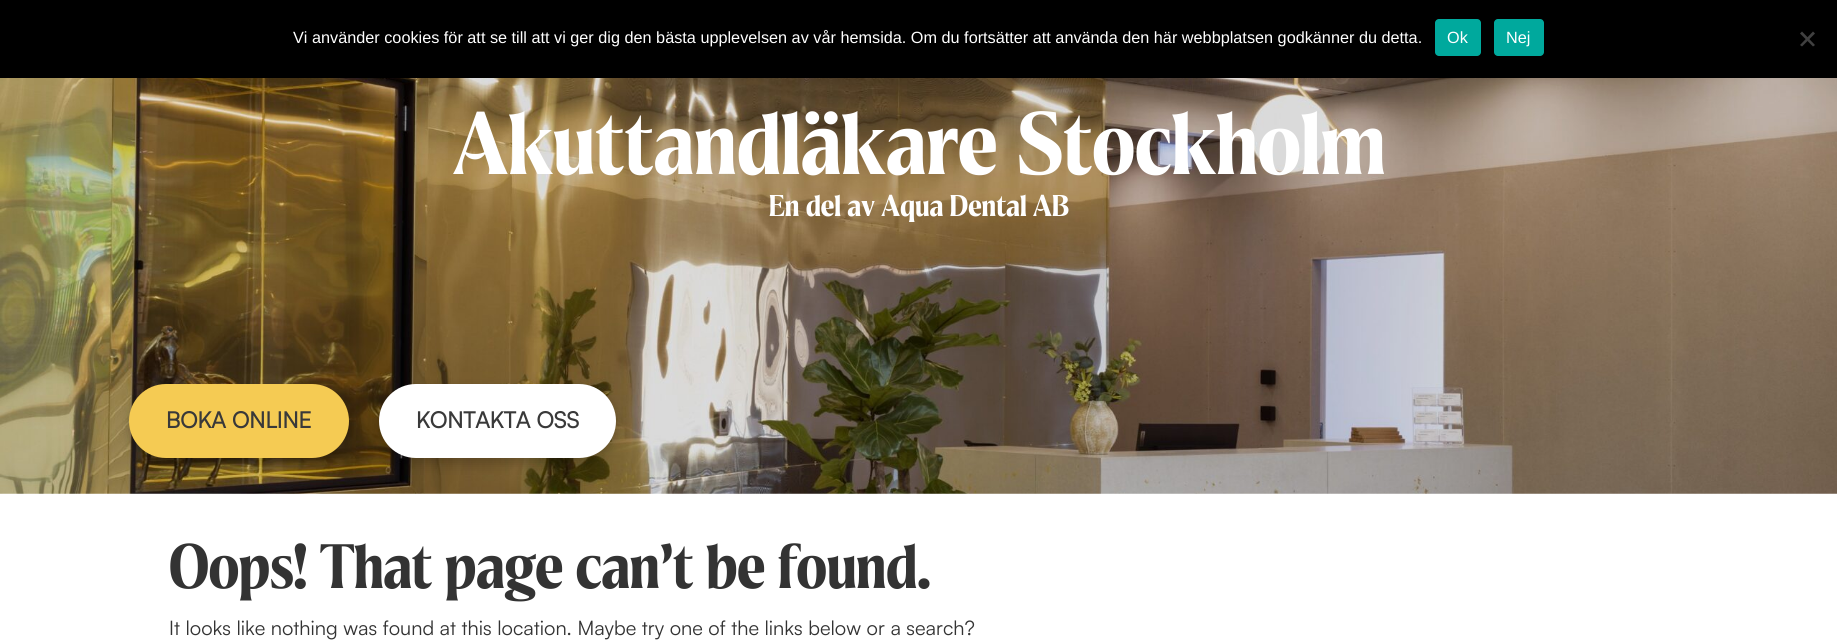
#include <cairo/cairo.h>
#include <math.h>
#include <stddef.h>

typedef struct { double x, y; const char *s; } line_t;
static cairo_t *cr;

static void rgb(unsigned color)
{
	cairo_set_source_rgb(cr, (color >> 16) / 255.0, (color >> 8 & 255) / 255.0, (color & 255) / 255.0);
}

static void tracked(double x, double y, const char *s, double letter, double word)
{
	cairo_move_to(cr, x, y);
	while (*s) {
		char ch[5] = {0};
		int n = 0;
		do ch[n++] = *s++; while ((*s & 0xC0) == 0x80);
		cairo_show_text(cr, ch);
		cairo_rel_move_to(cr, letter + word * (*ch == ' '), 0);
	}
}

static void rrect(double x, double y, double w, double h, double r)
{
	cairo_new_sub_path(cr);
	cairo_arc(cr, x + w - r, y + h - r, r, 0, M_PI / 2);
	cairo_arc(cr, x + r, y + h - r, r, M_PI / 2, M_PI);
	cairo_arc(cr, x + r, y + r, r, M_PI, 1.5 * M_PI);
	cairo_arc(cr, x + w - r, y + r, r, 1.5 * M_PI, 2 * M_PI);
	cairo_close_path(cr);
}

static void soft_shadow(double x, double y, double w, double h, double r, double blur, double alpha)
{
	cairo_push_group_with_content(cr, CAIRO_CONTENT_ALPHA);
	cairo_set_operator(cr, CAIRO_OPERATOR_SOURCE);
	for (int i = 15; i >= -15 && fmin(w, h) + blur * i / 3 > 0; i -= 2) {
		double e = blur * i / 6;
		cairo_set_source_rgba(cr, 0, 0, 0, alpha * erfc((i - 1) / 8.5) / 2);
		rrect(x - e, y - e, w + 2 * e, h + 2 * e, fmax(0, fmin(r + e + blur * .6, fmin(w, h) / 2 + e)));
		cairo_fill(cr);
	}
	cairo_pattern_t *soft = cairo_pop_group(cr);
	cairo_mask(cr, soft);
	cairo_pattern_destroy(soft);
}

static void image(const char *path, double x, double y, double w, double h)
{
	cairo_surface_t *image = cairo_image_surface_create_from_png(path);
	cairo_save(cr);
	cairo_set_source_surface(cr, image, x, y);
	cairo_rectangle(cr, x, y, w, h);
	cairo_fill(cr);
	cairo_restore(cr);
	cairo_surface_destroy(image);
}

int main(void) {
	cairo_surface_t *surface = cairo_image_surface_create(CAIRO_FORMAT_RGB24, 1837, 641);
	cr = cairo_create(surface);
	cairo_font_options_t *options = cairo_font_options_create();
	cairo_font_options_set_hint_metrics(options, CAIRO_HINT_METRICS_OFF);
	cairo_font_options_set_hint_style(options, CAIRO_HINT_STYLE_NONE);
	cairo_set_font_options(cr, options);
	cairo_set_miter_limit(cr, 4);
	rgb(0xffffff);
	cairo_paint(cr);
	rgb(0x000000);
	cairo_rectangle(cr, 0, 0, 1837, 78);
	cairo_fill(cr);
	rgb(0x00a99d);
	rrect(1435, 19, 46, 37, 4);
	cairo_fill(cr);
	rrect(1494, 19, 50, 37, 4);
	cairo_fill(cr);
	rgb(0x404040);
	cairo_new_path(cr);
	cairo_move_to(cr, 1813, 31.5);
	cairo_line_to(cr, 1815, 33.5);
	cairo_line_to(cr, 1802, 46.5);
	cairo_line_to(cr, 1800, 45);
	cairo_close_path(cr);
	cairo_fill(cr);
	cairo_new_path(cr);
	cairo_move_to(cr, 1800, 33.5);
	cairo_line_to(cr, 1802, 31.5);
	cairo_line_to(cr, 1815, 45);
	cairo_line_to(cr, 1813, 46.5);
	cairo_close_path(cr);
	cairo_fill(cr);
	image("img/1.png", 0, 78, 1837, 416);
	rgb(0x000000);
	soft_shadow(129, 390, 220, 74, 37, 6, 0.2);
	rgb(0xf5cb53);
	rrect(129, 384, 220, 74, 37);
	cairo_fill(cr);
	rgb(0x000000);
	soft_shadow(379, 390, 237, 74, 37, 6, 0.2);
	rgb(0xffffff);
	rrect(379, 384, 237, 74, 37);
	cairo_fill(cr);
	cairo_select_font_face(cr, "Liberation Sans", CAIRO_FONT_SLANT_NORMAL, CAIRO_FONT_WEIGHT_NORMAL);
	cairo_set_font_size(cr, 16.25);
	{
		static const line_t items[] = {
			{293, 43, "Vi använder cookies för att se till att vi ger dig den bästa upplevelsen av vår hemsida. Om du fortsätter att använda den här webbplatsen godkänner du detta."},
			{1447, 43, "Ok"},
			{1506, 43, "Nej"},
		};
		for (size_t i = 0; i < sizeof items / sizeof *items; i++) {
			cairo_move_to(cr, items[i].x, items[i].y);
			cairo_show_text(cr, items[i].s);
		}
	}
	cairo_select_font_face(cr, "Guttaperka", CAIRO_FONT_SLANT_NORMAL, CAIRO_FONT_WEIGHT_BOLD);
	cairo_set_font_size(cr, 88);
	cairo_move_to(cr, 453, 174);
	cairo_show_text(cr, "Akuttandläkare Stockholm");
	cairo_set_font_size(cr, 30);
	cairo_move_to(cr, 769, 216);
	cairo_show_text(cr, "En del av Aqua Dental AB");
	cairo_select_font_face(cr, "Satoshi", CAIRO_FONT_SLANT_NORMAL, CAIRO_FONT_WEIGHT_BOLD);
	cairo_set_font_size(cr, 22.5);
	rgb(0x393939);
	cairo_move_to(cr, 166, 428);
	cairo_show_text(cr, "BOKA ONLINE");
	cairo_move_to(cr, 416, 428);
	cairo_show_text(cr, "KONTAKTA OSS");
	cairo_select_font_face(cr, "Guttaperka", CAIRO_FONT_SLANT_NORMAL, CAIRO_FONT_WEIGHT_BOLD);
	cairo_set_font_size(cr, 62.5);
	rgb(0x333333);
	tracked(169, 588, "Oops! That page can’t be found.", -0.5, 0);
	cairo_select_font_face(cr, "Satoshi", CAIRO_FONT_SLANT_NORMAL, CAIRO_FONT_WEIGHT_NORMAL);
	cairo_set_font_size(cr, 20);
	cairo_move_to(cr, 169, 635);
	cairo_show_text(cr, "It looks like nothing was found at this location. Maybe try one of the links below or a search?");
	cairo_surface_write_to_png(surface, "page.png");
	cairo_font_options_destroy(options);
	cairo_destroy(cr);
	cairo_surface_destroy(surface);
	return 0;
}
